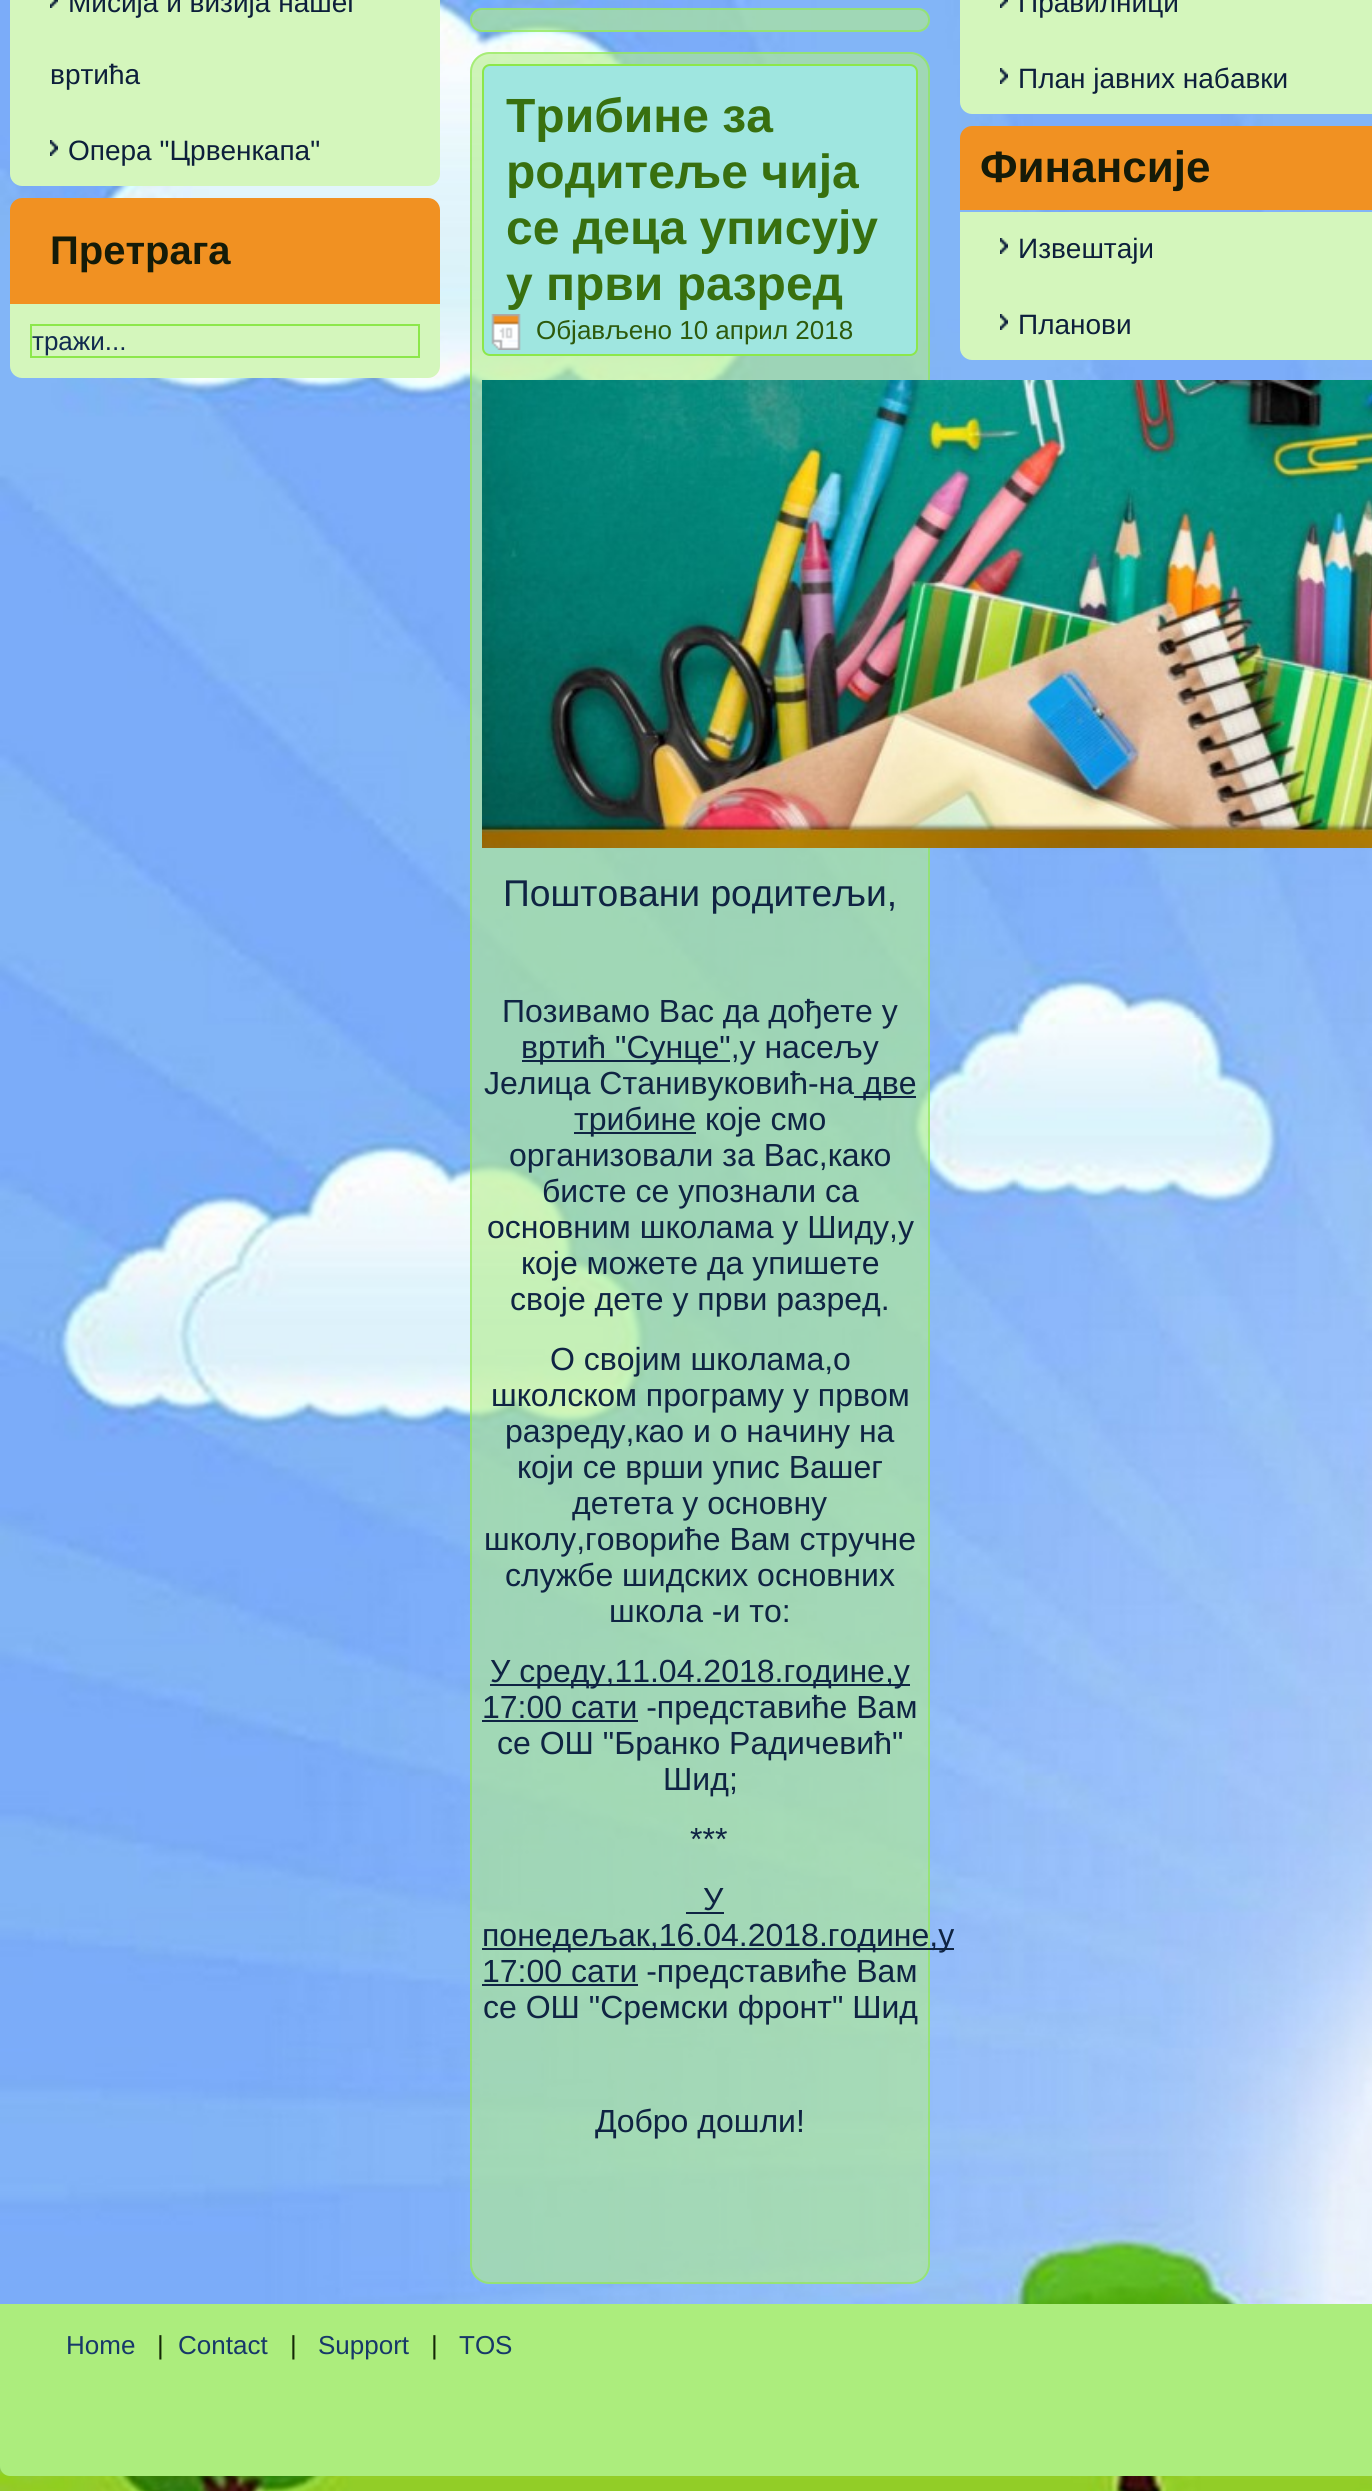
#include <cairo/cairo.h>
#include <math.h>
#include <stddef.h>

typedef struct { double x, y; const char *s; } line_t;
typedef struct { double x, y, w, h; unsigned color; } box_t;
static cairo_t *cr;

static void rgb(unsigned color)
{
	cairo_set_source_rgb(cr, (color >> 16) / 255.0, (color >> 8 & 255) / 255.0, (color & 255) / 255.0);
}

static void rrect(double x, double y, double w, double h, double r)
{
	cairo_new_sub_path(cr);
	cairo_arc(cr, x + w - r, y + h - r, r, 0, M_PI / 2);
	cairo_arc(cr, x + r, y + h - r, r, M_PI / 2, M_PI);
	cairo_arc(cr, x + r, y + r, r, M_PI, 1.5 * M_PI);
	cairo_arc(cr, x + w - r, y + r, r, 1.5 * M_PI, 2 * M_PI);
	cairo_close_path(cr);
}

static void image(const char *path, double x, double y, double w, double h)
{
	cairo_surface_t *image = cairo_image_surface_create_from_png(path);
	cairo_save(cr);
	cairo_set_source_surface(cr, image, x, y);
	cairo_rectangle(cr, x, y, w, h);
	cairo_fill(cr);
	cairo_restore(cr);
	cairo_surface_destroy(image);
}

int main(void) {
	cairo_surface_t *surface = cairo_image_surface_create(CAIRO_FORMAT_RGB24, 1372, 2491);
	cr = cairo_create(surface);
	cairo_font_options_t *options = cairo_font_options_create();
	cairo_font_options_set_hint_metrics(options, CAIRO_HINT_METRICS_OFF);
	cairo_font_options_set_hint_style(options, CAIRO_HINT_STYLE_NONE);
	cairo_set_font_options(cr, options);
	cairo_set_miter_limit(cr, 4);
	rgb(0xffffff);
	cairo_paint(cr);
	image("img/1.png", 0, 0, 1372, 2491);
	rgb(0xd4f6bc);
	cairo_new_path(cr);
	cairo_move_to(cr, 10, -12);
	cairo_line_to(cr, 440, -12);
	cairo_line_to(cr, 440, 174);
	cairo_curve_to(cr, 440, 180.5, 434.5, 186, 428, 186);
	cairo_line_to(cr, 22, 186);
	cairo_curve_to(cr, 15.5, 186, 10, 180.5, 10, 174);
	cairo_close_path(cr);
	cairo_fill(cr);
	image("img/2.png", 50, 0, 8, 8);
	image("img/3.png", 50, 140, 8, 16);
	rgb(0xf19122);
	cairo_new_path(cr);
	cairo_move_to(cr, 22, 198);
	cairo_line_to(cr, 428, 198);
	cairo_curve_to(cr, 434.5, 198, 440, 203.5, 440, 210);
	cairo_line_to(cr, 440, 304);
	cairo_line_to(cr, 10, 304);
	cairo_line_to(cr, 10, 210);
	cairo_curve_to(cr, 10, 203.5, 15.5, 198, 22, 198);
	cairo_close_path(cr);
	cairo_fill(cr);
	rgb(0xd4f6bc);
	cairo_new_path(cr);
	cairo_move_to(cr, 10, 304);
	cairo_line_to(cr, 440, 304);
	cairo_line_to(cr, 440, 366);
	cairo_curve_to(cr, 440, 372.5, 434.5, 378, 428, 378);
	cairo_line_to(cr, 22, 378);
	cairo_curve_to(cr, 15.5, 378, 10, 372.5, 10, 366);
	cairo_close_path(cr);
	cairo_fill(cr);
	cairo_rectangle(cr, 31, 325, 388, 32);
	rgb(0x8ce74b);
	cairo_stroke(cr);
	cairo_set_source_rgba(cr, 0.706, 0.937, 0.541, 0.6);
	rrect(470, 8, 460, 24, 12);
	cairo_fill(cr);
	rrect(471, 9, 458, 22, 11);
	cairo_set_source_rgba(cr, 0.549, 0.906, 0.294, 0.6);
	cairo_stroke(cr);
	cairo_set_source_rgba(cr, 0.706, 0.937, 0.541, 0.6);
	rrect(470, 52, 460, 2232, 20);
	cairo_fill(cr);
	rrect(471, 53, 458, 2230, 19);
	cairo_set_source_rgba(cr, 0.549, 0.906, 0.294, 0.6);
	cairo_stroke(cr);
	rgb(0x9fe6e0);
	rrect(483, 65, 434, 290, 7);
	cairo_fill_preserve(cr);
	rgb(0x8ce74b);
	cairo_stroke(cr);
	image("img/4.png", 491, 314, 30, 36);
	image("img/5.png", 482, 380, 890, 468);
	{
		static const box_t items[] = {
			{522, 1060, 208, 2, 0x0f2443},
			{854, 1096, 62, 2, 0x0f2443},
			{574, 1132, 122, 2, 0x0f2443},
			{490, 1684, 420, 2, 0x0f2443},
			{482, 1720, 156, 2, 0x0f2443},
			{686, 1912, 38, 2, 0x0f2443},
			{482, 1948, 472, 2, 0x0f2443},
			{482, 1984, 156, 2, 0x0f2443},
		};
		for (size_t i = 0; i < sizeof items / sizeof *items; i++) {
			rgb(items[i].color);
			cairo_rectangle(cr, items[i].x, items[i].y, items[i].w, items[i].h);
			cairo_fill(cr);
		}
	}
	rgb(0xd4f6bc);
	cairo_new_path(cr);
	cairo_move_to(cr, 960, -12);
	cairo_line_to(cr, 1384, -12);
	cairo_line_to(cr, 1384, 102);
	cairo_curve_to(cr, 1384, 108.5, 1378.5, 114, 1372, 114);
	cairo_line_to(cr, 972, 114);
	cairo_curve_to(cr, 965.5, 114, 960, 108.5, 960, 102);
	cairo_close_path(cr);
	cairo_fill(cr);
	image("img/2.png", 1000, 0, 8, 8);
	image("img/3.png", 1000, 68, 8, 16);
	rgb(0xf19122);
	cairo_new_path(cr);
	cairo_move_to(cr, 972, 126);
	cairo_line_to(cr, 1372, 126);
	cairo_curve_to(cr, 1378.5, 126, 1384, 131.5, 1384, 138);
	cairo_line_to(cr, 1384, 210);
	cairo_line_to(cr, 960, 210);
	cairo_line_to(cr, 960, 138);
	cairo_curve_to(cr, 960, 131.5, 965.5, 126, 972, 126);
	cairo_close_path(cr);
	cairo_fill(cr);
	rgb(0xd4f6bc);
	cairo_new_path(cr);
	cairo_move_to(cr, 960, 212);
	cairo_line_to(cr, 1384, 212);
	cairo_line_to(cr, 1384, 348);
	cairo_curve_to(cr, 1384, 354.5, 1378.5, 360, 1372, 360);
	cairo_line_to(cr, 972, 360);
	cairo_curve_to(cr, 965.5, 360, 960, 354.5, 960, 348);
	cairo_close_path(cr);
	cairo_fill(cr);
	image("img/3.png", 1000, 238, 8, 16);
	image("img/3.png", 1000, 314, 8, 16);
	rgb(0xaced7d);
	cairo_new_path(cr);
	cairo_move_to(cr, 0, 2304);
	cairo_line_to(cr, 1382, 2304);
	cairo_line_to(cr, 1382, 2466);
	cairo_curve_to(cr, 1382, 2471.5, 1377.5, 2476, 1372, 2476);
	cairo_line_to(cr, 10, 2476);
	cairo_curve_to(cr, 4.5, 2476, 0, 2471.5, 0, 2466);
	cairo_close_path(cr);
	cairo_fill(cr);
	cairo_select_font_face(cr, "Liberation Sans", CAIRO_FONT_SLANT_NORMAL, CAIRO_FONT_WEIGHT_NORMAL);
	cairo_set_font_size(cr, 28);
	rgb(0x0d1f3b);
	{
		static const line_t items[] = {
			{68, 12, "Мисија и визија нашег"},
			{50, 84, "вртића"},
			{68, 160, "Опера \"Црвенкапа\""},
		};
		for (size_t i = 0; i < sizeof items / sizeof *items; i++) {
			cairo_move_to(cr, items[i].x, items[i].y);
			cairo_show_text(cr, items[i].s);
		}
	}
	cairo_select_font_face(cr, "Liberation Sans", CAIRO_FONT_SLANT_NORMAL, CAIRO_FONT_WEIGHT_BOLD);
	cairo_set_font_size(cr, 40);
	rgb(0x151b08);
	cairo_move_to(cr, 50, 264);
	cairo_show_text(cr, "Претрага");
	cairo_select_font_face(cr, "Liberation Sans", CAIRO_FONT_SLANT_NORMAL, CAIRO_FONT_WEIGHT_NORMAL);
	cairo_set_font_size(cr, 26);
	rgb(0x112a4f);
	cairo_move_to(cr, 32, 350);
	cairo_show_text(cr, "тражи...");
	cairo_select_font_face(cr, "Liberation Sans", CAIRO_FONT_SLANT_NORMAL, CAIRO_FONT_WEIGHT_BOLD);
	cairo_set_font_size(cr, 48);
	rgb(0x38700f);
	{
		static const line_t items[] = {
			{506, 132, "Трибине за"},
			{506, 188, "родитеље чија"},
			{506, 244, "се деца уписују"},
			{506, 300, "у први разред"},
		};
		for (size_t i = 0; i < sizeof items / sizeof *items; i++) {
			cairo_move_to(cr, items[i].x, items[i].y);
			cairo_show_text(cr, items[i].s);
		}
	}
	cairo_select_font_face(cr, "Liberation Sans", CAIRO_FONT_SLANT_NORMAL, CAIRO_FONT_WEIGHT_NORMAL);
	cairo_set_font_size(cr, 26);
	rgb(0x2d5a0c);
	cairo_move_to(cr, 536, 339);
	cairo_show_text(cr, "Објављено 10 април 2018");
	cairo_set_font_size(cr, 37.25);
	rgb(0x0f2443);
	cairo_move_to(cr, 503, 906);
	cairo_show_text(cr, "Поштовани родитељи,");
	cairo_set_font_size(cr, 32);
	{
		static const line_t items[] = {
			{502, 1022, "Позивамо Вас да дођете у"},
			{521, 1058, "вртић \"Сунце\",у насељу"},
			{484, 1094, "Јелица Станивуковић-на"},
			{863, 1094, "две"},
			{574, 1130, "трибине које смо"},
			{509, 1166, "организовали за Вас,како"},
			{542, 1202, "бисте се упознали са"},
			{487, 1238, "основним школама у Шиду,у"},
			{521, 1274, "које можете да упишете"},
			{510, 1310, "своје дете у први разред."},
			{550, 1370, "О својим школама,о"},
			{491, 1406, "школском програму у првом"},
			{505, 1442, "разреду,као и о начину на"},
			{517, 1478, "који се врши упис Вашег"},
			{572, 1514, "детета у основну"},
			{484, 1550, "школу,говориће Вам стручне"},
			{505, 1586, "службе шидских основних"},
			{609, 1622, "школа -и то:"},
			{490, 1682, "У среду,11.04.2018.године,у"},
			{482, 1718, "17:00 сати -представиће Вам"},
			{497, 1754, "се ОШ \"Бранко Радичевић\""},
			{663, 1790, "Шид;"},
			{690, 1850, "***"},
			{703, 1910, "У"},
			{482, 1946, "понедељак,16.04.2018.године,у"},
			{482, 1982, "17:00 сати -представиће Вам"},
			{483, 2018, "се ОШ \"Сремски фронт\" Шид"},
			{595, 2132, "Добро дошли!"},
		};
		for (size_t i = 0; i < sizeof items / sizeof *items; i++) {
			cairo_move_to(cr, items[i].x, items[i].y);
			cairo_show_text(cr, items[i].s);
		}
	}
	cairo_set_font_size(cr, 28);
	rgb(0x0d1f3b);
	cairo_move_to(cr, 1018, 12);
	cairo_show_text(cr, "Правилници");
	cairo_move_to(cr, 1018, 88);
	cairo_show_text(cr, "План јавних набавки");
	cairo_select_font_face(cr, "Liberation Sans", CAIRO_FONT_SLANT_NORMAL, CAIRO_FONT_WEIGHT_BOLD);
	cairo_set_font_size(cr, 44);
	rgb(0x151b08);
	cairo_move_to(cr, 980, 182);
	cairo_show_text(cr, "Финансије");
	cairo_select_font_face(cr, "Liberation Sans", CAIRO_FONT_SLANT_NORMAL, CAIRO_FONT_WEIGHT_NORMAL);
	cairo_set_font_size(cr, 28);
	rgb(0x0d1f3b);
	cairo_move_to(cr, 1018, 258);
	cairo_show_text(cr, "Извештаји");
	cairo_move_to(cr, 1018, 334);
	cairo_show_text(cr, "Планови");
	cairo_set_font_size(cr, 26);
	rgb(0x173869);
	cairo_move_to(cr, 66, 2354);
	cairo_show_text(cr, "Home");
	rgb(0x142806);
	cairo_move_to(cr, 157, 2354);
	cairo_show_text(cr, "|");
	rgb(0x173869);
	cairo_move_to(cr, 178, 2354);
	cairo_show_text(cr, "Contact");
	rgb(0x142806);
	cairo_move_to(cr, 290, 2354);
	cairo_show_text(cr, "|");
	rgb(0x173869);
	cairo_move_to(cr, 318, 2354);
	cairo_show_text(cr, "Support");
	rgb(0x142806);
	cairo_move_to(cr, 431, 2354);
	cairo_show_text(cr, "|");
	rgb(0x173869);
	cairo_move_to(cr, 459, 2354);
	cairo_show_text(cr, "TOS");
	cairo_surface_write_to_png(surface, "page.png");
	cairo_font_options_destroy(options);
	cairo_destroy(cr);
	cairo_surface_destroy(surface);
	return 0;
}
